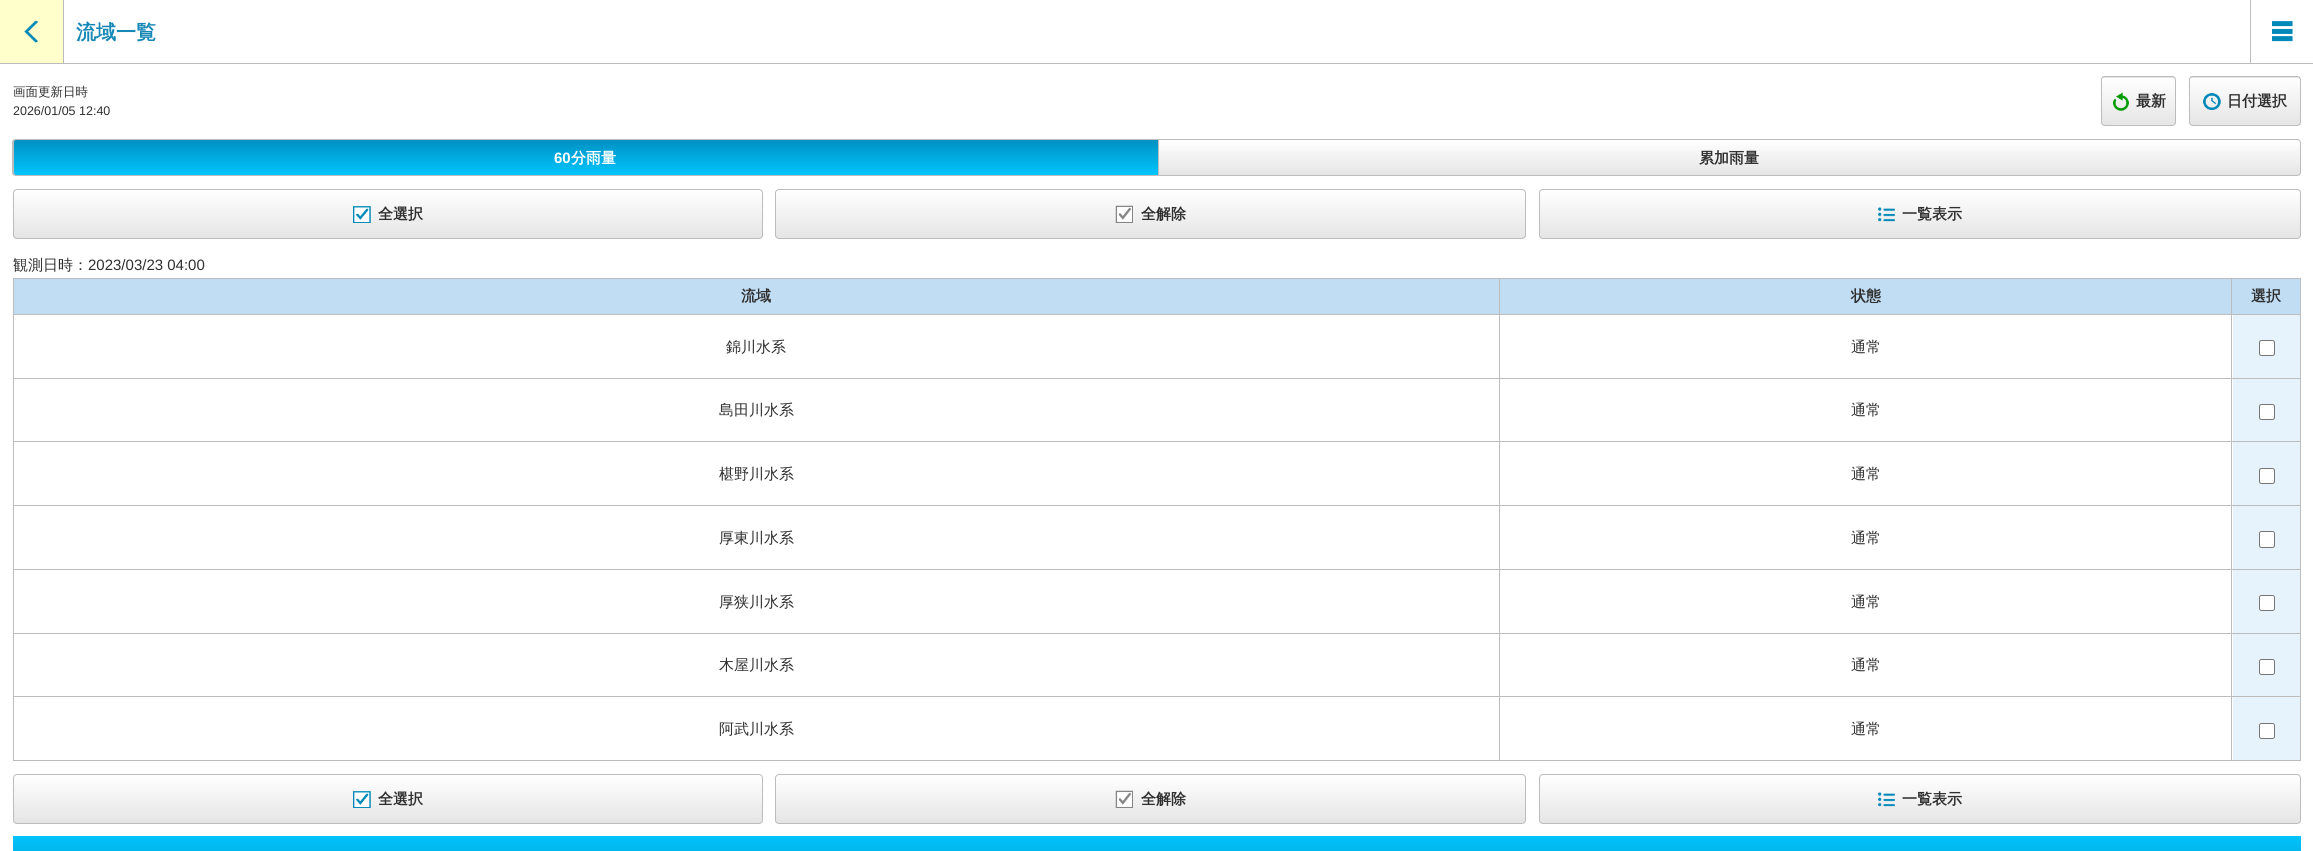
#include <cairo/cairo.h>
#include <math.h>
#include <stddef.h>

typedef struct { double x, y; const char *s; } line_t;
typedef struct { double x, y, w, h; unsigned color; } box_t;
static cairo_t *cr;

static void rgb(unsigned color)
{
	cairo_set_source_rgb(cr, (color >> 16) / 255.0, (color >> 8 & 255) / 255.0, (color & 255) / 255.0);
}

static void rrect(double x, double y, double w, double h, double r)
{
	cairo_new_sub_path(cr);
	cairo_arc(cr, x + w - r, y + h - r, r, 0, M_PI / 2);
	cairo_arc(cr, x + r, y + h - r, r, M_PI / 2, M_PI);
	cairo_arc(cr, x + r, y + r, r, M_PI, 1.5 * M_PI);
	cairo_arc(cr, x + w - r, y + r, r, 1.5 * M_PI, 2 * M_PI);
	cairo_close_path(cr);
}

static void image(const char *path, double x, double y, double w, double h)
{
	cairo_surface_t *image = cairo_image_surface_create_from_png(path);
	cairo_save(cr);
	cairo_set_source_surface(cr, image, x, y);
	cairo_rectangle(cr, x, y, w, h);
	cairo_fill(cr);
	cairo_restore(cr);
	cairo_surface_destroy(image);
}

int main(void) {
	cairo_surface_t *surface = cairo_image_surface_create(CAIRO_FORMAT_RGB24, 2313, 851);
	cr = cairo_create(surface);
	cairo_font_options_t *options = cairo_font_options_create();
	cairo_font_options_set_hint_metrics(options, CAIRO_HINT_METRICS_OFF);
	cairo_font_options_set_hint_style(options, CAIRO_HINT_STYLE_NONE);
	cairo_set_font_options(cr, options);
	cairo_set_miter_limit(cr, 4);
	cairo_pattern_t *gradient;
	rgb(0xffffff);
	cairo_paint(cr);
	{
		static const box_t items[] = {
			{63, 0, 1, 64, 0xbcbcbc},
			{0, 63, 2313, 1, 0xbcbcbc},
			{0, 0, 63, 63, 0xffffcc},
		};
		for (size_t i = 0; i < sizeof items / sizeof *items; i++) {
			rgb(items[i].color);
			cairo_rectangle(cr, items[i].x, items[i].y, items[i].w, items[i].h);
			cairo_fill(cr);
		}
	}
	image("img/1.png", 24, 20, 14, 23);
	rgb(0xbcbcbc);
	cairo_rectangle(cr, 2250, 0, 1, 64);
	cairo_fill(cr);
	image("img/2.png", 2272, 21, 21, 21);
	cairo_save(cr);
	rrect(2101, 76, 75, 50, 4);
	cairo_clip(cr);
	gradient = cairo_pattern_create_linear(2139, 30, 2139, 78);
	cairo_pattern_add_color_stop_rgba(gradient, 0, 1, 1, 1, 1);
	cairo_pattern_add_color_stop_rgba(gradient, 1, 0.898, 0.898, 0.898, 1);
	cairo_set_source(cr, gradient);
	cairo_pattern_destroy(gradient);
	cairo_rectangle(cr, 2101, 76, 75, 2);
	cairo_fill(cr);
	gradient = cairo_pattern_create_linear(2139, 78, 2139, 125);
	cairo_pattern_add_color_stop_rgba(gradient, 0, 1, 1, 1, 1);
	cairo_pattern_add_color_stop_rgba(gradient, 1, 0.898, 0.898, 0.898, 1);
	cairo_set_source(cr, gradient);
	cairo_pattern_destroy(gradient);
	cairo_rectangle(cr, 2101, 78, 75, 47);
	cairo_fill(cr);
	cairo_restore(cr);
	rrect(2101.5, 76.5, 74, 49, 3.5);
	cairo_set_line_width(cr, 1);
	cairo_stroke(cr);
	image("img/3.png", 2113, 92, 16, 19);
	cairo_save(cr);
	rrect(2189, 76, 112, 50, 4);
	cairo_clip(cr);
	gradient = cairo_pattern_create_linear(2245, 30, 2245, 78);
	cairo_pattern_add_color_stop_rgba(gradient, 0, 1, 1, 1, 1);
	cairo_pattern_add_color_stop_rgba(gradient, 1, 0.898, 0.898, 0.898, 1);
	cairo_set_source(cr, gradient);
	cairo_pattern_destroy(gradient);
	cairo_rectangle(cr, 2189, 76, 112, 2);
	cairo_fill(cr);
	gradient = cairo_pattern_create_linear(2245, 77, 2245, 125);
	cairo_pattern_add_color_stop_rgba(gradient, 0, 1, 1, 1, 1);
	cairo_pattern_add_color_stop_rgba(gradient, 1, 0.898, 0.898, 0.898, 1);
	cairo_set_source(cr, gradient);
	cairo_pattern_destroy(gradient);
	cairo_rectangle(cr, 2189, 78, 112, 47);
	cairo_fill(cr);
	cairo_restore(cr);
	rrect(2189.5, 76.5, 111, 49, 3.5);
	cairo_stroke(cr);
	image("img/4.png", 2203, 93, 18, 17);
	cairo_save(cr);
	cairo_new_path(cr);
	cairo_move_to(cr, 17, 139);
	cairo_line_to(cr, 1158, 139);
	cairo_line_to(cr, 1158, 176);
	cairo_line_to(cr, 17, 176);
	cairo_curve_to(cr, 15, 176, 13, 174, 13, 172);
	cairo_line_to(cr, 13, 143);
	cairo_curve_to(cr, 13, 141, 15, 139, 17, 139);
	cairo_close_path(cr);
	cairo_clip(cr);
	gradient = cairo_pattern_create_linear(586, 140, 586, 175);
	cairo_pattern_add_color_stop_rgba(gradient, 0, 0, 0.569, 0.765, 1);
	cairo_pattern_add_color_stop_rgba(gradient, 0.99, 0, 0.769, 0.988, 1);
	cairo_set_source(cr, gradient);
	cairo_pattern_destroy(gradient);
	cairo_rectangle(cr, 13, 140, 1145, 35);
	cairo_fill(cr);
	cairo_restore(cr);
	cairo_set_fill_rule(cr, CAIRO_FILL_RULE_EVEN_ODD);
	cairo_new_path(cr);
	cairo_move_to(cr, 16, 139);
	cairo_line_to(cr, 1158, 139);
	cairo_line_to(cr, 1158, 176);
	cairo_line_to(cr, 16, 176);
	cairo_curve_to(cr, 14, 176, 12, 175, 12, 172);
	cairo_line_to(cr, 12, 142);
	cairo_curve_to(cr, 12, 140, 14, 139, 16, 139);
	cairo_close_path(cr);
	cairo_move_to(cr, 16, 140);
	cairo_line_to(cr, 1158, 140);
	cairo_line_to(cr, 1158, 175);
	cairo_line_to(cr, 16, 175);
	cairo_curve_to(cr, 15, 175, 14, 174, 14, 172);
	cairo_line_to(cr, 14, 142);
	cairo_curve_to(cr, 14, 141, 15, 140, 16, 140);
	cairo_close_path(cr);
	cairo_fill(cr);
	cairo_save(cr);
	cairo_set_fill_rule(cr, CAIRO_FILL_RULE_WINDING);
	cairo_new_path(cr);
	cairo_move_to(cr, 1158, 139);
	cairo_line_to(cr, 2297, 139);
	cairo_curve_to(cr, 2299, 139, 2301, 141, 2301, 143);
	cairo_line_to(cr, 2301, 172);
	cairo_curve_to(cr, 2301, 174, 2299, 176, 2297, 176);
	cairo_line_to(cr, 1158, 176);
	cairo_close_path(cr);
	cairo_clip(cr);
	gradient = cairo_pattern_create_linear(1729, 140, 1729, 175);
	cairo_pattern_add_color_stop_rgba(gradient, 0, 1, 1, 1, 1);
	cairo_pattern_add_color_stop_rgba(gradient, 1, 0.898, 0.898, 0.898, 1);
	cairo_set_source(cr, gradient);
	cairo_pattern_destroy(gradient);
	cairo_rectangle(cr, 1159, 140, 1142, 35);
	cairo_fill(cr);
	cairo_restore(cr);
	cairo_new_path(cr);
	cairo_move_to(cr, 1158.5, 139.5);
	cairo_line_to(cr, 2297, 139.5);
	cairo_curve_to(cr, 2299, 139.5, 2300.5, 141, 2300.5, 143);
	cairo_line_to(cr, 2300.5, 172);
	cairo_curve_to(cr, 2300.5, 174, 2299, 175.5, 2297, 175.5);
	cairo_line_to(cr, 1158.5, 175.5);
	cairo_close_path(cr);
	cairo_stroke(cr);
	cairo_save(cr);
	cairo_set_fill_rule(cr, CAIRO_FILL_RULE_WINDING);
	rrect(13, 189, 750, 50, 4);
	cairo_clip(cr);
	gradient = cairo_pattern_create_linear(388, 190, 388, 238);
	cairo_pattern_add_color_stop_rgba(gradient, 0, 1, 1, 1, 1);
	cairo_pattern_add_color_stop_rgba(gradient, 1, 0.898, 0.898, 0.898, 1);
	cairo_set_source(cr, gradient);
	cairo_pattern_destroy(gradient);
	cairo_rectangle(cr, 13, 190, 750, 48);
	cairo_fill(cr);
	cairo_restore(cr);
	rrect(13.5, 189.5, 749, 49, 3.5);
	cairo_stroke(cr);
	image("img/5.png", 353, 206, 18, 17);
	cairo_save(cr);
	cairo_set_fill_rule(cr, CAIRO_FILL_RULE_WINDING);
	rrect(775, 189, 751, 50, 4);
	cairo_clip(cr);
	gradient = cairo_pattern_create_linear(1151, 190, 1151, 238);
	cairo_pattern_add_color_stop_rgba(gradient, 0, 1, 1, 1, 1);
	cairo_pattern_add_color_stop_rgba(gradient, 1, 0.898, 0.898, 0.898, 1);
	cairo_set_source(cr, gradient);
	cairo_pattern_destroy(gradient);
	cairo_rectangle(cr, 775, 190, 751, 48);
	cairo_fill(cr);
	cairo_restore(cr);
	rrect(775.5, 189.5, 750, 49, 3.5);
	cairo_stroke(cr);
	image("img/6.png", 1115, 205, 18, 18);
	cairo_save(cr);
	cairo_set_fill_rule(cr, CAIRO_FILL_RULE_WINDING);
	rrect(1539, 189, 762, 50, 4);
	cairo_clip(cr);
	gradient = cairo_pattern_create_linear(1920, 190, 1920, 238);
	cairo_pattern_add_color_stop_rgba(gradient, 0, 1, 1, 1, 1);
	cairo_pattern_add_color_stop_rgba(gradient, 1, 0.898, 0.898, 0.898, 1);
	cairo_set_source(cr, gradient);
	cairo_pattern_destroy(gradient);
	cairo_rectangle(cr, 1539, 190, 762, 48);
	cairo_fill(cr);
	cairo_restore(cr);
	rrect(1539.5, 189.5, 761, 49, 3.5);
	cairo_stroke(cr);
	image("img/7.png", 1878, 207, 17, 15);
	{
		static const box_t items[] = {
			{13, 278, 2288, 1, 0xbcbcbc},
			{2300, 278, 1, 483, 0xbcbcbc},
			{13, 760, 2288, 1, 0xbcbcbc},
			{13, 278, 1, 483, 0xbcbcbc},
			{14, 279, 1485, 35, 0xc1ddf4},
			{1500, 279, 800, 35, 0xc1ddf4},
			{2231, 314, 70, 1, 0xbcbcbc},
			{2231, 378, 70, 1, 0xbcbcbc},
			{2233, 379, 67, 126, 0xe6f3fc},
			{2231, 441, 70, 1, 0xbcbcbc},
			{2231, 505, 70, 1, 0xbcbcbc},
			{2231, 569, 70, 1, 0xbcbcbc},
			{2231, 633, 70, 1, 0xbcbcbc},
			{2233, 634, 67, 126, 0xe6f3fc},
			{2231, 696, 70, 1, 0xbcbcbc},
			{2231, 696, 1, 65, 0xbcbcbc},
			{1499, 696, 734, 1, 0xbcbcbc},
			{2231, 633, 1, 65, 0xbcbcbc},
			{1499, 633, 734, 1, 0xbcbcbc},
			{2231, 569, 1, 65, 0xbcbcbc},
			{1499, 569, 734, 1, 0xbcbcbc},
			{2231, 505, 1, 65, 0xbcbcbc},
			{1499, 505, 734, 1, 0xbcbcbc},
			{2231, 441, 1, 65, 0xbcbcbc},
			{1499, 441, 734, 1, 0xbcbcbc},
			{2231, 378, 1, 65, 0xbcbcbc},
			{1499, 378, 734, 1, 0xbcbcbc},
			{2231, 314, 1, 65, 0xbcbcbc},
			{1499, 314, 734, 1, 0xbcbcbc},
			{1499, 696, 1, 65, 0xbcbcbc},
			{13, 696, 1487, 1, 0xbcbcbc},
			{1499, 633, 1, 65, 0xbcbcbc},
			{13, 633, 1487, 1, 0xbcbcbc},
			{1499, 569, 1, 65, 0xbcbcbc},
			{13, 569, 1487, 1, 0xbcbcbc},
			{1499, 505, 1, 65, 0xbcbcbc},
			{13, 505, 1487, 1, 0xbcbcbc},
			{1499, 441, 1, 65, 0xbcbcbc},
			{13, 441, 1487, 1, 0xbcbcbc},
			{1499, 378, 1, 65, 0xbcbcbc},
			{13, 378, 1487, 1, 0xbcbcbc},
			{1499, 314, 1, 65, 0xbcbcbc},
			{13, 314, 1487, 1, 0xbcbcbc},
			{1499, 278, 1, 37, 0xbcbcbc},
			{2231, 278, 1, 37, 0xbcbcbc},
			{2233, 315, 67, 63, 0xe6f3fc},
		};
		for (size_t i = 0; i < sizeof items / sizeof *items; i++) {
			rgb(items[i].color);
			cairo_rectangle(cr, items[i].x, items[i].y, items[i].w, items[i].h);
			cairo_fill(cr);
		}
	}
	rgb(0xffffff);
	rrect(2259.5, 340.5, 15, 15, 2);
	cairo_fill_preserve(cr);
	rgb(0x767676);
	cairo_stroke(cr);
	rgb(0xffffff);
	rrect(2259.5, 404.5, 15, 15, 2);
	cairo_fill_preserve(cr);
	rgb(0x767676);
	cairo_stroke(cr);
	rgb(0xffffff);
	rrect(2259.5, 468.5, 15, 15, 2);
	cairo_fill_preserve(cr);
	rgb(0x767676);
	cairo_stroke(cr);
	rgb(0xe6f3fc);
	cairo_rectangle(cr, 2233, 506, 67, 63);
	cairo_fill(cr);
	rgb(0xffffff);
	rrect(2259.5, 531.5, 15, 16, 2);
	cairo_fill_preserve(cr);
	rgb(0x767676);
	cairo_stroke(cr);
	rgb(0xe6f3fc);
	cairo_rectangle(cr, 2233, 570, 67, 63);
	cairo_fill(cr);
	rgb(0xffffff);
	rrect(2259.5, 595.5, 15, 15, 2);
	cairo_fill_preserve(cr);
	rgb(0x767676);
	cairo_stroke(cr);
	rgb(0xffffff);
	rrect(2259.5, 659.5, 15, 15, 2);
	cairo_fill_preserve(cr);
	rgb(0x767676);
	cairo_stroke(cr);
	rgb(0xffffff);
	rrect(2259.5, 723.5, 15, 15, 2);
	cairo_fill_preserve(cr);
	rgb(0x767676);
	cairo_stroke(cr);
	cairo_save(cr);
	cairo_set_fill_rule(cr, CAIRO_FILL_RULE_WINDING);
	rrect(13, 774, 750, 50, 4);
	cairo_clip(cr);
	gradient = cairo_pattern_create_linear(388, 775, 388, 823);
	cairo_pattern_add_color_stop_rgba(gradient, 0, 1, 1, 1, 1);
	cairo_pattern_add_color_stop_rgba(gradient, 1, 0.898, 0.898, 0.898, 1);
	cairo_set_source(cr, gradient);
	cairo_pattern_destroy(gradient);
	cairo_rectangle(cr, 13, 775, 750, 48);
	cairo_fill(cr);
	cairo_restore(cr);
	rrect(13.5, 774.5, 749, 49, 3.5);
	rgb(0xbcbcbc);
	cairo_stroke(cr);
	image("img/5.png", 353, 791, 18, 17);
	cairo_save(cr);
	cairo_set_fill_rule(cr, CAIRO_FILL_RULE_WINDING);
	rrect(775, 774, 751, 50, 4);
	cairo_clip(cr);
	gradient = cairo_pattern_create_linear(1151, 775, 1151, 823);
	cairo_pattern_add_color_stop_rgba(gradient, 0, 1, 1, 1, 1);
	cairo_pattern_add_color_stop_rgba(gradient, 1, 0.898, 0.898, 0.898, 1);
	cairo_set_source(cr, gradient);
	cairo_pattern_destroy(gradient);
	cairo_rectangle(cr, 775, 775, 751, 48);
	cairo_fill(cr);
	cairo_restore(cr);
	rrect(775.5, 774.5, 750, 49, 3.5);
	cairo_stroke(cr);
	image("img/6.png", 1115, 790, 18, 18);
	cairo_save(cr);
	cairo_set_fill_rule(cr, CAIRO_FILL_RULE_WINDING);
	rrect(1539, 774, 762, 50, 4);
	cairo_clip(cr);
	gradient = cairo_pattern_create_linear(1920, 775, 1920, 823);
	cairo_pattern_add_color_stop_rgba(gradient, 0, 1, 1, 1, 1);
	cairo_pattern_add_color_stop_rgba(gradient, 1, 0.898, 0.898, 0.898, 1);
	cairo_set_source(cr, gradient);
	cairo_pattern_destroy(gradient);
	cairo_rectangle(cr, 1539, 775, 762, 48);
	cairo_fill(cr);
	cairo_restore(cr);
	rrect(1539.5, 774.5, 761, 49, 3.5);
	cairo_stroke(cr);
	image("img/7.png", 1878, 792, 17, 15);
	gradient = cairo_pattern_create_linear(1157, 836, 1157, 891);
	cairo_pattern_add_color_stop_rgba(gradient, 0, 0, 0.769, 0.988, 1);
	cairo_pattern_add_color_stop_rgba(gradient, 1, 0, 0.569, 0.765, 1);
	cairo_set_source(cr, gradient);
	cairo_pattern_destroy(gradient);
	cairo_rectangle(cr, 13, 836, 2288, 15);
	cairo_fill(cr);
	cairo_select_font_face(cr, "WenQuanYi Zen Hei", CAIRO_FONT_SLANT_NORMAL, CAIRO_FONT_WEIGHT_BOLD);
	cairo_set_font_size(cr, 20);
	rgb(0x1688b5);
	cairo_move_to(cr, 76, 39);
	cairo_show_text(cr, "流域一覧");
	cairo_select_font_face(cr, "WenQuanYi Zen Hei Medium", CAIRO_FONT_SLANT_NORMAL, CAIRO_FONT_WEIGHT_NORMAL);
	cairo_set_font_size(cr, 12.5);
	rgb(0x2f2f2f);
	cairo_move_to(cr, 13, 96);
	cairo_show_text(cr, "画面更新日時");
	cairo_select_font_face(cr, "Liberation Sans", CAIRO_FONT_SLANT_NORMAL, CAIRO_FONT_WEIGHT_NORMAL);
	cairo_move_to(cr, 13, 115);
	cairo_show_text(cr, "2026/01/05 12:40");
	cairo_select_font_face(cr, "WenQuanYi Zen Hei", CAIRO_FONT_SLANT_NORMAL, CAIRO_FONT_WEIGHT_BOLD);
	cairo_set_font_size(cr, 15);
	cairo_move_to(cr, 2136, 106);
	cairo_show_text(cr, "最新");
	cairo_move_to(cr, 2227, 106);
	cairo_show_text(cr, "日付選択");
	cairo_select_font_face(cr, "Liberation Sans", CAIRO_FONT_SLANT_NORMAL, CAIRO_FONT_WEIGHT_BOLD);
	rgb(0xffffff);
	cairo_move_to(cr, 554, 163);
	cairo_show_text(cr, "60");
	cairo_select_font_face(cr, "WenQuanYi Zen Hei", CAIRO_FONT_SLANT_NORMAL, CAIRO_FONT_WEIGHT_BOLD);
	cairo_move_to(cr, 571, 163);
	cairo_show_text(cr, "分雨量");
	rgb(0x2f2f2f);
	{
		static const line_t items[] = {
			{1699, 163, "累加雨量"},
			{378, 219, "全選択"},
			{1141, 219, "全解除"},
			{1902, 219, "一覧表示"},
		};
		for (size_t i = 0; i < sizeof items / sizeof *items; i++) {
			cairo_move_to(cr, items[i].x, items[i].y);
			cairo_show_text(cr, items[i].s);
		}
	}
	cairo_select_font_face(cr, "WenQuanYi Zen Hei Medium", CAIRO_FONT_SLANT_NORMAL, CAIRO_FONT_WEIGHT_NORMAL);
	cairo_move_to(cr, 13, 270);
	cairo_show_text(cr, "観測日時：");
	cairo_select_font_face(cr, "Liberation Sans", CAIRO_FONT_SLANT_NORMAL, CAIRO_FONT_WEIGHT_NORMAL);
	cairo_move_to(cr, 88, 270);
	cairo_show_text(cr, "2023/03/23 04:00");
	cairo_select_font_face(cr, "WenQuanYi Zen Hei", CAIRO_FONT_SLANT_NORMAL, CAIRO_FONT_WEIGHT_BOLD);
	{
		static const line_t items[] = {
			{741, 301, "流域"},
			{1851, 301, "状態"},
			{2251, 301, "選択"},
		};
		for (size_t i = 0; i < sizeof items / sizeof *items; i++) {
			cairo_move_to(cr, items[i].x, items[i].y);
			cairo_show_text(cr, items[i].s);
		}
	}
	cairo_select_font_face(cr, "WenQuanYi Zen Hei Medium", CAIRO_FONT_SLANT_NORMAL, CAIRO_FONT_WEIGHT_NORMAL);
	{
		static const line_t items[] = {
			{726, 352, "錦川水系"},
			{1851, 352, "通常"},
			{719, 415, "島田川水系"},
			{1851, 415, "通常"},
			{719, 479, "椹野川水系"},
			{1851, 479, "通常"},
			{719, 543, "厚東川水系"},
			{1851, 543, "通常"},
			{719, 607, "厚狭川水系"},
			{1851, 607, "通常"},
			{719, 670, "木屋川水系"},
			{1851, 670, "通常"},
			{719, 734, "阿武川水系"},
			{1851, 734, "通常"},
		};
		for (size_t i = 0; i < sizeof items / sizeof *items; i++) {
			cairo_move_to(cr, items[i].x, items[i].y);
			cairo_show_text(cr, items[i].s);
		}
	}
	cairo_select_font_face(cr, "WenQuanYi Zen Hei", CAIRO_FONT_SLANT_NORMAL, CAIRO_FONT_WEIGHT_BOLD);
	{
		static const line_t items[] = {
			{378, 804, "全選択"},
			{1141, 804, "全解除"},
			{1902, 804, "一覧表示"},
		};
		for (size_t i = 0; i < sizeof items / sizeof *items; i++) {
			cairo_move_to(cr, items[i].x, items[i].y);
			cairo_show_text(cr, items[i].s);
		}
	}
	cairo_surface_write_to_png(surface, "page.png");
	cairo_font_options_destroy(options);
	cairo_destroy(cr);
	cairo_surface_destroy(surface);
	return 0;
}
